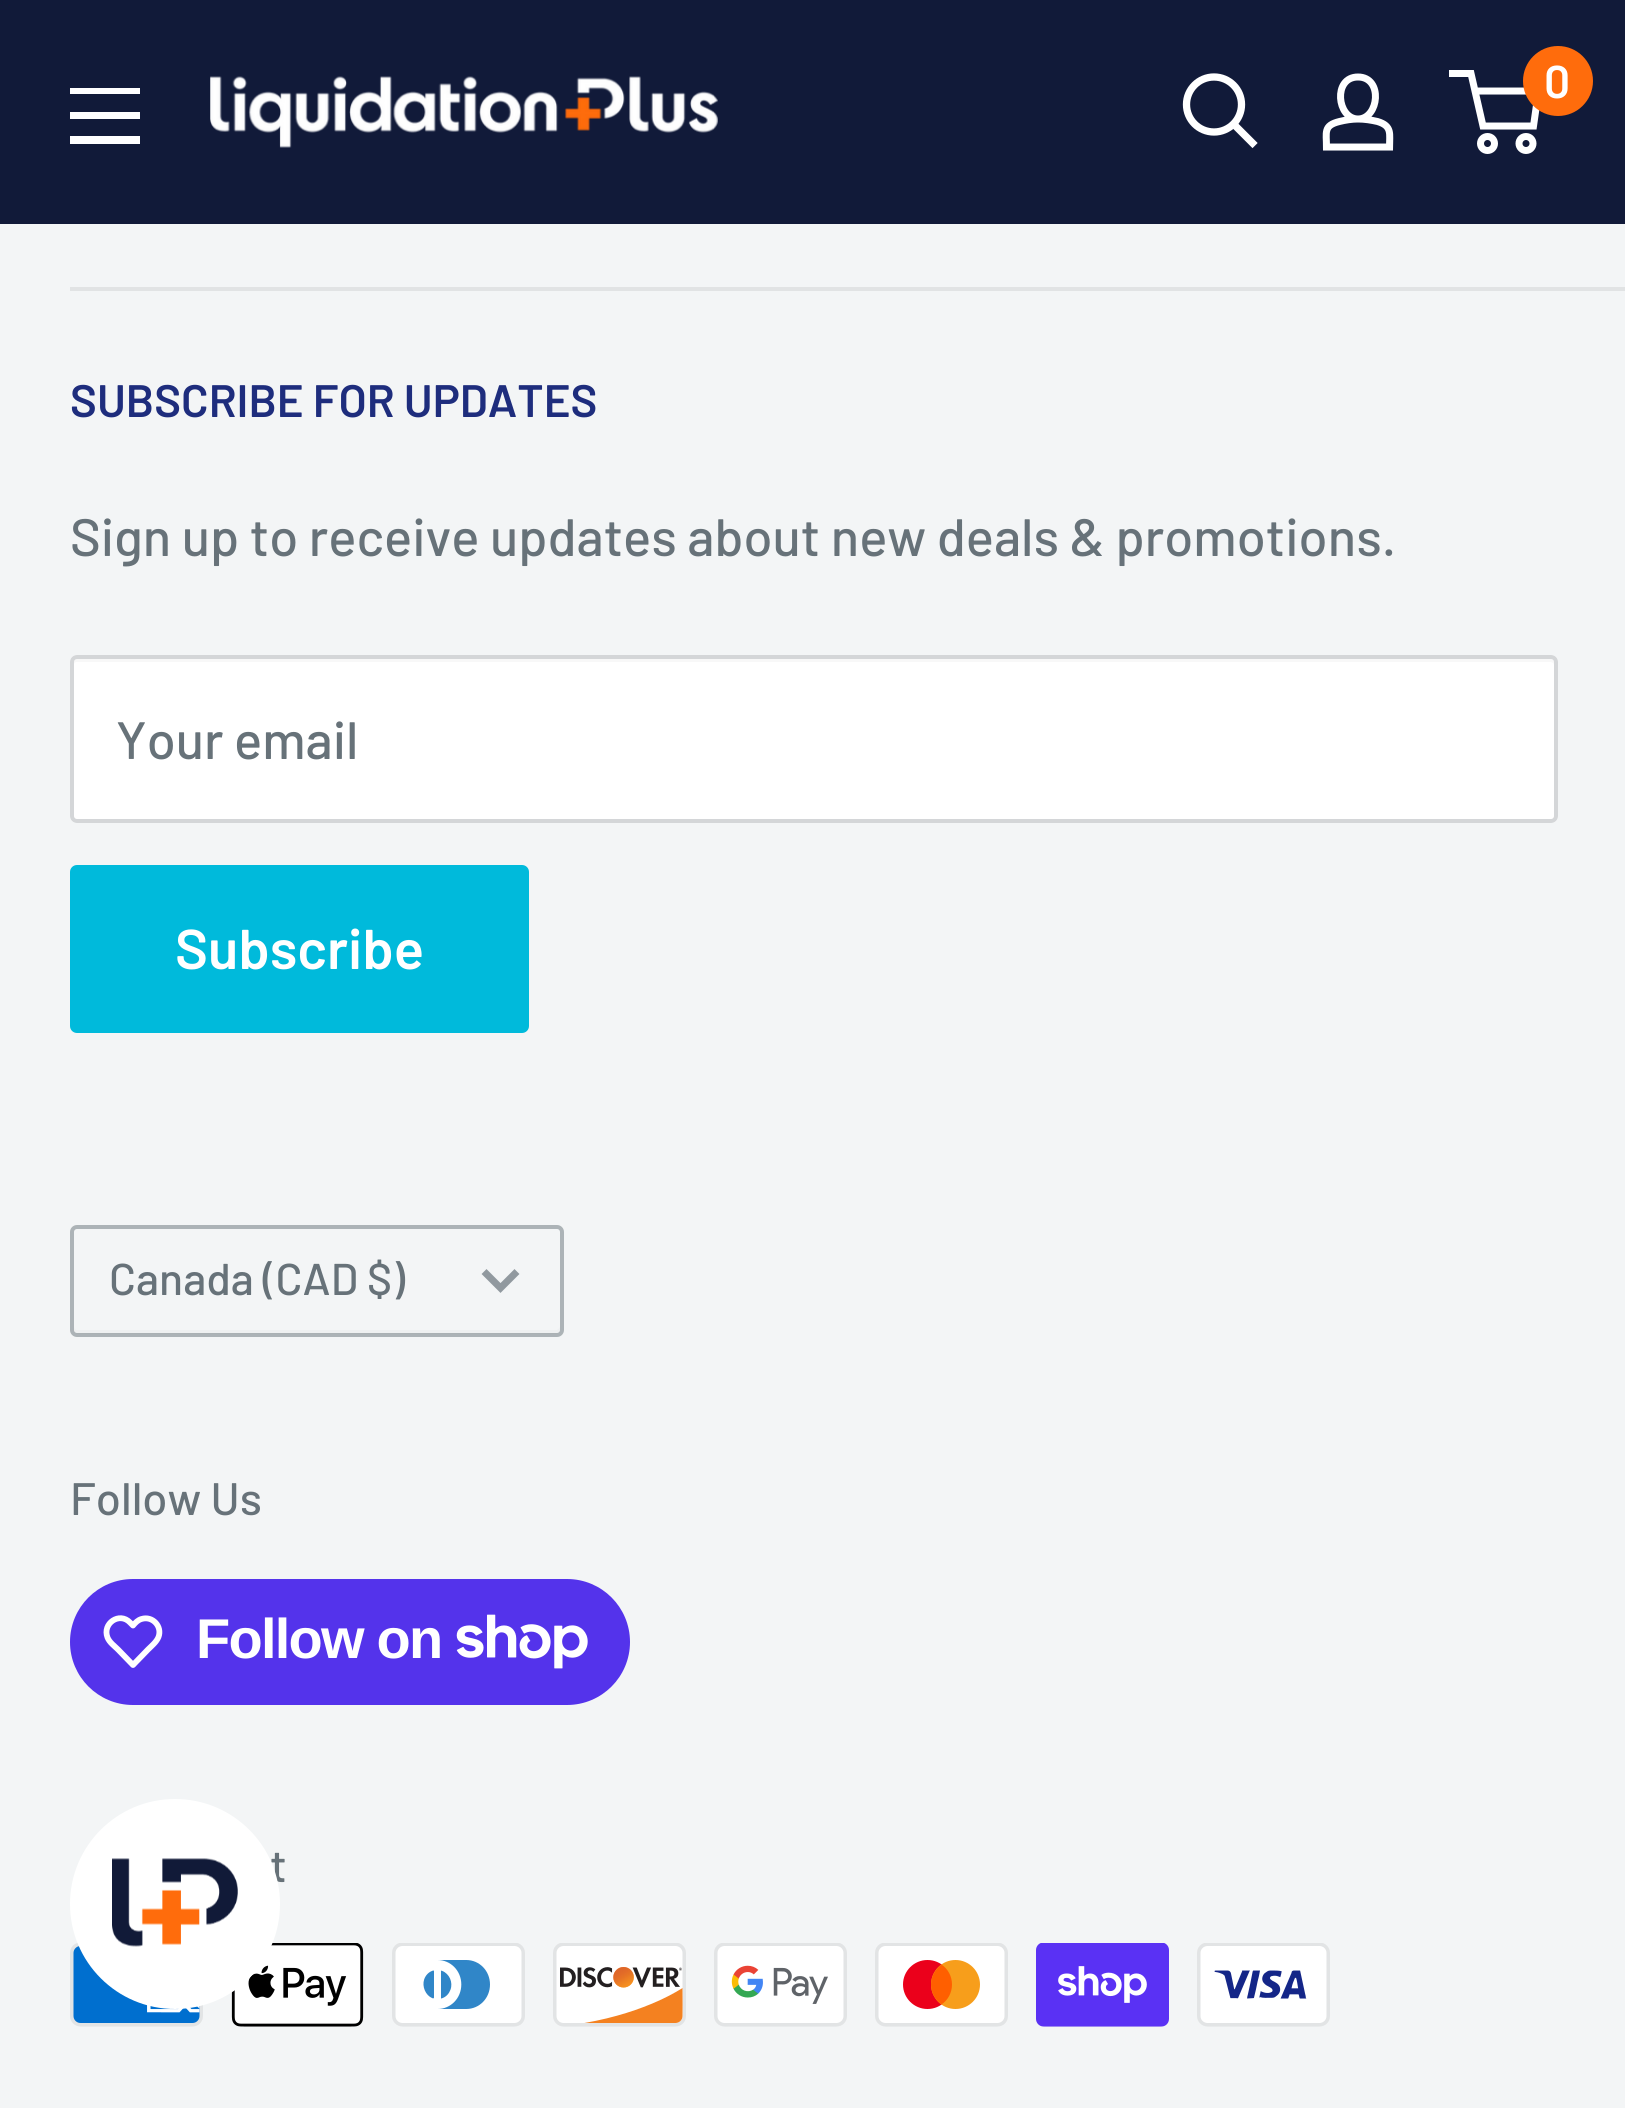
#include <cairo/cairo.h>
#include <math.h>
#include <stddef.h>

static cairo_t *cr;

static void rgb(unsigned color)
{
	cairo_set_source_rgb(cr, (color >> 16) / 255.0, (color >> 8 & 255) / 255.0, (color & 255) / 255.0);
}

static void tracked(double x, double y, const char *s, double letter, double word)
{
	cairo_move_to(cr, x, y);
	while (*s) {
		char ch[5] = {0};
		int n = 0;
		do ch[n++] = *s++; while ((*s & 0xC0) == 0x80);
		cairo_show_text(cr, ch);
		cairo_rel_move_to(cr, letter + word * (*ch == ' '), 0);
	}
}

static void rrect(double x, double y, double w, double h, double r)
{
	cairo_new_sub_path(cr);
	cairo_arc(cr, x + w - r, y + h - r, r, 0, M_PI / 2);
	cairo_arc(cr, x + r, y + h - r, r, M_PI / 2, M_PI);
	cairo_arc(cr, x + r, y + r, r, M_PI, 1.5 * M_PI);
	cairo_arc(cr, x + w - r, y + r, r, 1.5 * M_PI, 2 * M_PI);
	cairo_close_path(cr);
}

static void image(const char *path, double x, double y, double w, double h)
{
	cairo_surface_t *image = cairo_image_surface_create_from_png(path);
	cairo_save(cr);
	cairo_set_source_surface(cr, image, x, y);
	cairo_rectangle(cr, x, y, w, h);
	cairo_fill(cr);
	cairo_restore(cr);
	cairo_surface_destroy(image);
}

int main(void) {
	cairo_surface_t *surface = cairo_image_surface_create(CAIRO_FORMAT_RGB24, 1625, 2108);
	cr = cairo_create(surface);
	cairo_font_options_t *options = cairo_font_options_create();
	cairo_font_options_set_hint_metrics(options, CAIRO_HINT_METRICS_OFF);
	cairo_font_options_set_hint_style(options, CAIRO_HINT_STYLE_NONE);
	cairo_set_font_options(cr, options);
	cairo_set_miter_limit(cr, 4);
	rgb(0xf3f5f6);
	cairo_paint(cr);
	rgb(0x111a39);
	cairo_rectangle(cr, 0, 0, 1625, 224);
	cairo_fill(cr);
	rgb(0xffffff);
	cairo_set_fill_rule(cr, CAIRO_FILL_RULE_EVEN_ODD);
	cairo_new_path(cr);
	cairo_move_to(cr, 70, 136);
	cairo_line_to(cr, 140, 136);
	cairo_line_to(cr, 140, 144);
	cairo_line_to(cr, 70, 144);
	cairo_close_path(cr);
	cairo_move_to(cr, 70, 88);
	cairo_line_to(cr, 140, 88);
	cairo_line_to(cr, 140, 94);
	cairo_line_to(cr, 70, 94);
	cairo_close_path(cr);
	cairo_move_to(cr, 70, 112);
	cairo_line_to(cr, 140, 112);
	cairo_line_to(cr, 140, 119);
	cairo_line_to(cr, 70, 119);
	cairo_close_path(cr);
	cairo_fill(cr);
	image("img/1.png", 210, 76, 508, 72);
	cairo_new_path(cr);
	cairo_move_to(cr, 1252.5, 143);
	cairo_line_to(cr, 1234.5, 125);
	cairo_set_line_width(cr, 7.3);
	cairo_set_line_cap(cr, CAIRO_LINE_CAP_SQUARE);
	cairo_stroke(cr);
	cairo_arc(cr, 1214, 104.5, 27.5, 0, 2 * M_PI);
	cairo_set_line_cap(cr, CAIRO_LINE_CAP_BUTT);
	cairo_stroke(cr);
	cairo_new_path(cr);
	cairo_move_to(cr, 1358, 119);
	cairo_curve_to(cr, 1364.5, 119, 1371, 120, 1377.5, 121.5);
	cairo_curve_to(cr, 1392.5, 126, 1389.5, 134, 1389.5, 147);
	cairo_line_to(cr, 1326.5, 147);
	cairo_curve_to(cr, 1326.5, 132.5, 1323, 125.5, 1339.5, 121.5);
	cairo_curve_to(cr, 1345.5, 120, 1352, 119, 1358, 119);
	cairo_close_path(cr);
	cairo_move_to(cr, 1358, 119);
	cairo_curve_to(cr, 1337, 119, 1332.5, 77, 1358, 77);
	cairo_curve_to(cr, 1383.5, 77, 1379, 119, 1358, 119);
	cairo_close_path(cr);
	cairo_set_line_width(cr, 7);
	cairo_stroke(cr);
	cairo_arc(cr, 1487.5, 143.5, 7, 0, 2 * M_PI);
	cairo_stroke(cr);
	cairo_arc(cr, 1526, 143.5, 7, 0, 2 * M_PI);
	cairo_stroke(cr);
	cairo_new_path(cr);
	cairo_move_to(cr, 1474.5, 91);
	cairo_line_to(cr, 1538.5, 91);
	cairo_line_to(cr, 1533.5, 126);
	cairo_line_to(cr, 1483, 126);
	cairo_line_to(cr, 1471, 73.5);
	cairo_line_to(cr, 1449, 73.5);
	cairo_stroke(cr);
	rgb(0xff6c0c);
	cairo_arc(cr, 1558, 81, 35, 0, 2 * M_PI);
	cairo_fill(cr);
	rgb(0xe1e3e4);
	cairo_rectangle(cr, 70, 287, 1555, 4);
	cairo_fill(cr);
	rgb(0xffffff);
	rrect(70, 655, 1488, 168, 7);
	cairo_fill(cr);
	rgb(0xf8f8f8);
	cairo_set_fill_rule(cr, CAIRO_FILL_RULE_WINDING);
	cairo_new_path(cr);
	cairo_move_to(cr, 77, 662);
	cairo_line_to(cr, 1550, 662);
	cairo_curve_to(cr, 1552, 662, 1554, 663, 1554, 665);
	cairo_line_to(cr, 1554, 662);
	cairo_curve_to(cr, 1554, 660, 1552, 658, 1550, 658);
	cairo_line_to(cr, 78, 658);
	cairo_curve_to(cr, 76, 658, 74, 660, 74, 662);
	cairo_line_to(cr, 74, 665);
	cairo_curve_to(cr, 74, 663, 75, 662, 77, 662);
	cairo_close_path(cr);
	cairo_fill(cr);
	rrect(72, 657, 1484, 164, 5);
	rgb(0xd4d6d8);
	cairo_set_line_width(cr, 4);
	cairo_stroke(cr);
	rgb(0x00badb);
	rrect(70, 865, 459, 168, 7);
	cairo_fill(cr);
	rgb(0xeef0f1);
	cairo_new_path(cr);
	cairo_move_to(cr, 74, 1326);
	cairo_curve_to(cr, 74, 1329, 74, 1334, 78, 1334);
	cairo_line_to(cr, 557, 1334);
	cairo_curve_to(cr, 561, 1333, 560, 1329, 560, 1326);
	cairo_curve_to(cr, 560, 1328, 558, 1330, 556, 1330);
	cairo_line_to(cr, 77, 1330);
	cairo_curve_to(cr, 75, 1330, 74, 1328, 74, 1326);
	cairo_close_path(cr);
	cairo_fill(cr);
	rrect(72, 1227, 490, 108, 5);
	cairo_set_source_rgba(cr, 0.404, 0.447, 0.475, 0.5);
	cairo_stroke(cr);
	cairo_new_path(cr);
	cairo_move_to(cr, 514.5, 1274);
	cairo_line_to(cr, 500.5, 1288);
	cairo_line_to(cr, 486.5, 1274);
	rgb(0x91999f);
	cairo_set_line_width(cr, 7);
	cairo_set_line_cap(cr, CAIRO_LINE_CAP_SQUARE);
	cairo_stroke(cr);
	rgb(0x5433eb);
	rrect(70, 1579, 560, 126, 63);
	cairo_fill(cr);
	cairo_new_path(cr);
	cairo_move_to(cr, 130, 1622.5);
	cairo_line_to(cr, 133, 1625.5);
	cairo_curve_to(cr, 135.5, 1622.5, 138, 1620, 141.5, 1619);
	cairo_curve_to(cr, 152.5, 1615.5, 162.5, 1626.5, 158.5, 1637);
	cairo_curve_to(cr, 156.5, 1642, 151.5, 1646, 148, 1649.5);
	cairo_line_to(cr, 133, 1665);
	cairo_line_to(cr, 118, 1649.5);
	cairo_curve_to(cr, 114.5, 1646, 109.5, 1642.5, 107.5, 1637.5);
	cairo_curve_to(cr, 102, 1623.5, 119.5, 1611.5, 130, 1622.5);
	cairo_close_path(cr);
	rgb(0xffffff);
	cairo_set_line_width(cr, 5.8);
	cairo_set_line_cap(cr, CAIRO_LINE_CAP_BUTT);
	cairo_set_line_join(cr, CAIRO_LINE_JOIN_ROUND);
	cairo_stroke(cr);
	image("img/2.png", 456, 1614, 132, 55);
	image("img/3.png", 70, 1943, 133, 84);
	image("img/4.png", 231, 1943, 133, 84);
	image("img/5.png", 392, 1943, 133, 84);
	image("img/6.png", 553, 1943, 133, 84);
	image("img/7.png", 714, 1943, 133, 84);
	image("img/8.png", 875, 1943, 133, 84);
	image("img/9.png", 1036, 1943, 133, 84);
	image("img/10.png", 1197, 1943, 133, 84);
	cairo_select_font_face(cr, "Barlow SemiBold", CAIRO_FONT_SLANT_NORMAL, CAIRO_FONT_WEIGHT_NORMAL);
	cairo_set_font_size(cr, 46);
	cairo_move_to(cr, 1544, 98);
	cairo_show_text(cr, "0");
	cairo_set_font_size(cr, 45.5);
	rgb(0x1e2d7d);
	cairo_move_to(cr, 70, 417);
	cairo_show_text(cr, "SUBSCRIBE FOR UPDATES");
	cairo_select_font_face(cr, "Barlow Medium", CAIRO_FONT_SLANT_NORMAL, CAIRO_FONT_WEIGHT_NORMAL);
	cairo_set_font_size(cr, 52.5);
	rgb(0x677279);
	cairo_move_to(cr, 70, 556);
	cairo_show_text(cr, "Sign up to receive updates about new deals & promotions.");
	cairo_move_to(cr, 116, 759);
	cairo_show_text(cr, "Your email");
	cairo_select_font_face(cr, "Barlow SemiBold", CAIRO_FONT_SLANT_NORMAL, CAIRO_FONT_WEIGHT_NORMAL);
	cairo_set_font_size(cr, 56);
	rgb(0xffffff);
	cairo_move_to(cr, 175, 969);
	cairo_show_text(cr, "Subscribe");
	cairo_select_font_face(cr, "Barlow Medium", CAIRO_FONT_SLANT_NORMAL, CAIRO_FONT_WEIGHT_NORMAL);
	cairo_set_font_size(cr, 44.5);
	rgb(0x677279);
	cairo_move_to(cr, 109, 1295);
	cairo_show_text(cr, "Canada (CAD $)");
	cairo_set_font_size(cr, 45.5);
	cairo_move_to(cr, 70, 1515);
	cairo_show_text(cr, "Follow Us");
	cairo_select_font_face(cr, "Liberation Sans", CAIRO_FONT_SLANT_NORMAL, CAIRO_FONT_WEIGHT_BOLD);
	cairo_set_font_size(cr, 56);
	rgb(0xffffff);
	tracked(196, 1658, "Follow on", -1.75, 0);
	cairo_select_font_face(cr, "Barlow Medium", CAIRO_FONT_SLANT_NORMAL, CAIRO_FONT_WEIGHT_NORMAL);
	cairo_set_font_size(cr, 45.5);
	rgb(0x677279);
	cairo_move_to(cr, 270, 1882);
	cairo_show_text(cr, "t");
	rgb(0xffffff);
	cairo_new_path(cr);
	cairo_arc(cr, 175, 1904, 105, 0, 2 * M_PI);
	cairo_fill(cr);
	image("img/11.png", 112, 1858, 126, 89);
	cairo_surface_write_to_png(surface, "page.png");
	cairo_font_options_destroy(options);
	cairo_destroy(cr);
	cairo_surface_destroy(surface);
	return 0;
}
